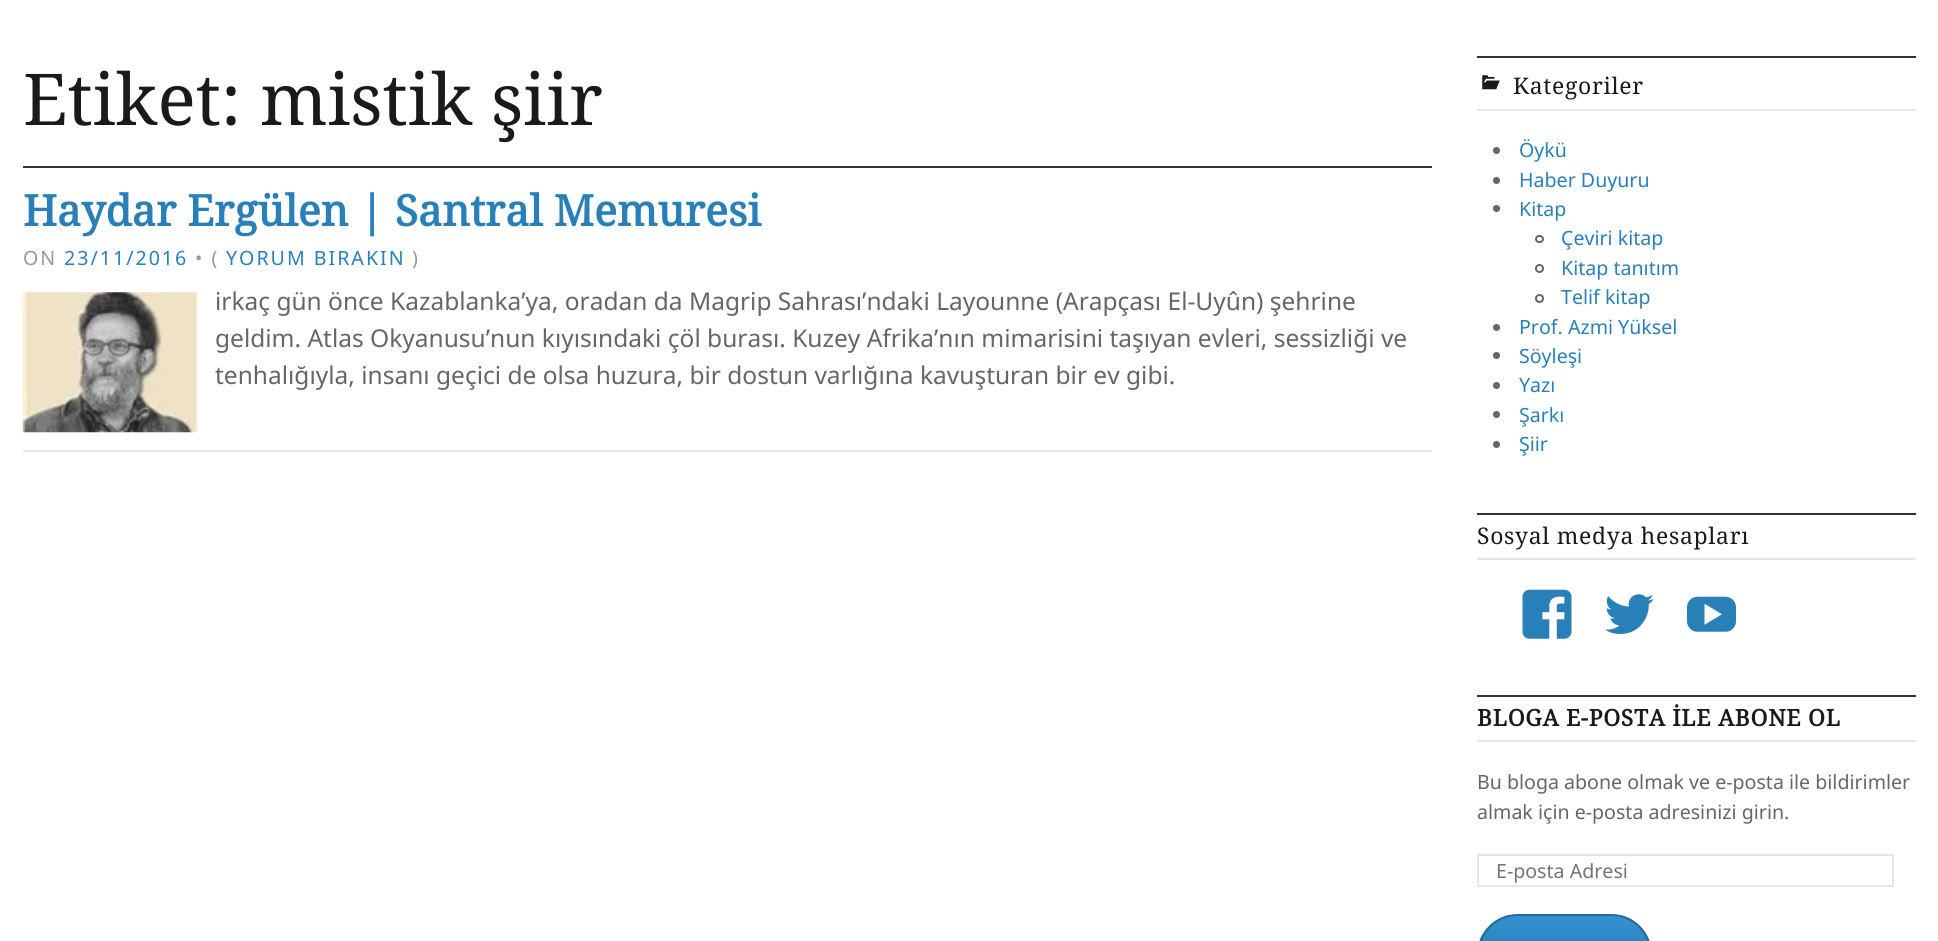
#include <cairo/cairo.h>
#include <math.h>
#include <stddef.h>

typedef struct { double x, y; const char *s; } line_t;
static cairo_t *cr;

static void rgb(unsigned color)
{
	cairo_set_source_rgb(cr, (color >> 16) / 255.0, (color >> 8 & 255) / 255.0, (color & 255) / 255.0);
}

static void tracked(double x, double y, const char *s, double letter, double word)
{
	cairo_move_to(cr, x, y);
	while (*s) {
		char ch[5] = {0};
		int n = 0;
		do ch[n++] = *s++; while ((*s & 0xC0) == 0x80);
		cairo_show_text(cr, ch);
		cairo_rel_move_to(cr, letter + word * (*ch == ' '), 0);
	}
}

static void rrect(double x, double y, double w, double h, double r)
{
	cairo_new_sub_path(cr);
	cairo_arc(cr, x + w - r, y + h - r, r, 0, M_PI / 2);
	cairo_arc(cr, x + r, y + h - r, r, M_PI / 2, M_PI);
	cairo_arc(cr, x + r, y + r, r, M_PI, 1.5 * M_PI);
	cairo_arc(cr, x + w - r, y + r, r, 1.5 * M_PI, 2 * M_PI);
	cairo_close_path(cr);
}

static void image(const char *path, double x, double y, double w, double h)
{
	cairo_surface_t *image = cairo_image_surface_create_from_png(path);
	cairo_save(cr);
	cairo_set_source_surface(cr, image, x, y);
	cairo_rectangle(cr, x, y, w, h);
	cairo_fill(cr);
	cairo_restore(cr);
	cairo_surface_destroy(image);
}

int main(void) {
	cairo_surface_t *surface = cairo_image_surface_create(CAIRO_FORMAT_RGB24, 1938, 941);
	cr = cairo_create(surface);
	cairo_font_options_t *options = cairo_font_options_create();
	cairo_font_options_set_hint_metrics(options, CAIRO_HINT_METRICS_OFF);
	cairo_font_options_set_hint_style(options, CAIRO_HINT_STYLE_NONE);
	cairo_set_font_options(cr, options);
	cairo_set_miter_limit(cr, 4);
	cairo_pattern_t *gradient;
	rgb(0xffffff);
	cairo_paint(cr);
	rgb(0x333333);
	cairo_rectangle(cr, 23, 166, 1409, 2);
	cairo_fill(cr);
	rgb(0xe6e6e6);
	cairo_rectangle(cr, 23, 450, 1409, 2);
	cairo_fill(cr);
	image("img/1.png", 22, 292, 176, 141);
	rgb(0x333333);
	cairo_rectangle(cr, 1477, 56, 439, 2);
	cairo_fill(cr);
	rgb(0xe6e6e6);
	cairo_rectangle(cr, 1477, 109, 439, 2);
	cairo_fill(cr);
	image("img/2.png", 1482, 75, 18, 15);
	rgb(0x666666);
	cairo_arc(cr, 1496.5, 150.5, 3.5, 0, 2 * M_PI);
	cairo_fill(cr);
	cairo_arc(cr, 1496.5, 180.5, 3.5, 0, 2 * M_PI);
	cairo_fill(cr);
	cairo_arc(cr, 1496.5, 208.5, 3.5, 0, 2 * M_PI);
	cairo_fill(cr);
	rrect(1536, 236, 7, 6, 3);
	cairo_stroke(cr);
	cairo_arc(cr, 1539.5, 268.5, 3.5, 0, 2 * M_PI);
	cairo_stroke(cr);
	cairo_arc(cr, 1539.5, 298.5, 3.5, 0, 2 * M_PI);
	cairo_stroke(cr);
	cairo_arc(cr, 1496.5, 327.5, 3.5, 0, 2 * M_PI);
	cairo_fill(cr);
	cairo_arc(cr, 1496.5, 355.5, 3.5, 0, 2 * M_PI);
	cairo_fill(cr);
	cairo_arc(cr, 1496.5, 385.5, 3.5, 0, 2 * M_PI);
	cairo_fill(cr);
	cairo_arc(cr, 1496.5, 414.5, 3.5, 0, 2 * M_PI);
	cairo_fill(cr);
	cairo_arc(cr, 1496.5, 444.5, 3.5, 0, 2 * M_PI);
	cairo_fill(cr);
	rgb(0x333333);
	cairo_rectangle(cr, 1477, 513, 439, 2);
	cairo_fill(cr);
	rgb(0xe6e6e6);
	cairo_rectangle(cr, 1477, 558, 439, 2);
	cairo_fill(cr);
	image("img/3.png", 1522, 589, 50, 50);
	image("img/4.png", 1605, 594, 49, 41);
	image("img/5.png", 1687, 596, 49, 36);
	rgb(0x333333);
	cairo_rectangle(cr, 1477, 695, 439, 2);
	cairo_fill(cr);
	rgb(0xe6e6e6);
	cairo_rectangle(cr, 1477, 740, 439, 2);
	cairo_fill(cr);
	cairo_rectangle(cr, 1478, 855, 415, 31);
	cairo_stroke(cr);
	cairo_save(cr);
	rrect(1477, 914, 175, 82, 41);
	cairo_clip(cr);
	gradient = cairo_pattern_create_linear(1565, 915, 1565, 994);
	cairo_pattern_add_color_stop_rgba(gradient, 0, 0.204, 0.576, 0.824, 1);
	cairo_pattern_add_color_stop_rgba(gradient, 1, 0.137, 0.424, 0.612, 1);
	cairo_set_source(cr, gradient);
	cairo_pattern_destroy(gradient);
	cairo_rectangle(cr, 1479, 915, 171, 26);
	cairo_fill(cr);
	cairo_restore(cr);
	rrect(1478, 915, 173, 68, 40);
	rgb(0x236c9c);
	cairo_stroke(cr);
	cairo_select_font_face(cr, "Noto Serif", CAIRO_FONT_SLANT_NORMAL, CAIRO_FONT_WEIGHT_NORMAL);
	cairo_set_font_size(cr, 71.5);
	rgb(0x1a1a1a);
	cairo_move_to(cr, 23, 125);
	cairo_show_text(cr, "Etiket: mistik şiir");
	cairo_select_font_face(cr, "Noto Serif", CAIRO_FONT_SLANT_NORMAL, CAIRO_FONT_WEIGHT_BOLD);
	cairo_set_font_size(cr, 42.9);
	rgb(0x2980b9);
	cairo_move_to(cr, 23, 226);
	cairo_show_text(cr, "Haydar Ergülen | Santral Memuresi");
	cairo_select_font_face(cr, "Noto Sans", CAIRO_FONT_SLANT_NORMAL, CAIRO_FONT_WEIGHT_NORMAL);
	cairo_set_font_size(cr, 19.6);
	rgb(0x999999);
	tracked(23, 265, "ON", 2, 0);
	rgb(0x2980b9);
	tracked(64, 265, "23/11/2016", 2, 0);
	rgb(0x999999);
	tracked(195, 265, "• (", 2, 0);
	rgb(0x2980b9);
	tracked(226, 265, "YORUM BIRAKIN", 2, 0);
	rgb(0x999999);
	tracked(412, 265, ")", 2, 0);
	cairo_set_font_size(cr, 24.5);
	rgb(0x666666);
	{
		static const line_t items[] = {
			{215, 310, "irkaç gün önce Kazablanka’ya, oradan da Magrip Sahrası’ndaki Layounne (Arapçası El-Uyûn) şehrine"},
			{215, 347, "geldim. Atlas Okyanusu’nun kıyısındaki çöl burası. Kuzey Afrika’nın mimarisini taşıyan evleri, sessizliği ve"},
			{215, 384, "tenhalığıyla, insanı geçici de olsa huzura, bir dostun varlığına kavuşturan bir ev gibi."},
		};
		for (size_t i = 0; i < sizeof items / sizeof *items; i++) {
			cairo_move_to(cr, items[i].x, items[i].y);
			cairo_show_text(cr, items[i].s);
		}
	}
	cairo_select_font_face(cr, "Noto Serif", CAIRO_FONT_SLANT_NORMAL, CAIRO_FONT_WEIGHT_NORMAL);
	cairo_set_font_size(cr, 22.9);
	rgb(0x1a1a1a);
	tracked(1513, 94, "Kategoriler", 0.7, 0);
	cairo_select_font_face(cr, "Noto Sans", CAIRO_FONT_SLANT_NORMAL, CAIRO_FONT_WEIGHT_NORMAL);
	cairo_set_font_size(cr, 19.6);
	rgb(0x2980b9);
	{
		static const line_t items[] = {
			{1519, 157, "Öykü"},
			{1519, 187, "Haber Duyuru"},
			{1519, 216, "Kitap"},
			{1561, 245, "Çeviri kitap"},
			{1561, 275, "Kitap tanıtım"},
			{1561, 304, "Telif kitap"},
			{1519, 334, "Prof. Azmi Yüksel"},
			{1519, 363, "Söyleşi"},
			{1519, 392, "Yazı"},
			{1519, 422, "Şarkı"},
			{1519, 451, "Şiir"},
		};
		for (size_t i = 0; i < sizeof items / sizeof *items; i++) {
			cairo_move_to(cr, items[i].x, items[i].y);
			cairo_show_text(cr, items[i].s);
		}
	}
	cairo_select_font_face(cr, "Noto Serif", CAIRO_FONT_SLANT_NORMAL, CAIRO_FONT_WEIGHT_NORMAL);
	cairo_set_font_size(cr, 22.9);
	rgb(0x1a1a1a);
	tracked(1477, 544, "Sosyal medya hesapları", 0.7, 0);
	cairo_select_font_face(cr, "Noto Serif", CAIRO_FONT_SLANT_NORMAL, CAIRO_FONT_WEIGHT_BOLD);
	tracked(1477, 726, "BLOGA E-POSTA İLE ABONE OL", 0.7, 0);
	cairo_select_font_face(cr, "Noto Sans", CAIRO_FONT_SLANT_NORMAL, CAIRO_FONT_WEIGHT_NORMAL);
	cairo_set_font_size(cr, 19.6);
	rgb(0x666666);
	cairo_move_to(cr, 1477, 789);
	cairo_show_text(cr, "Bu bloga abone olmak ve e-posta ile bildirimler");
	cairo_move_to(cr, 1477, 819);
	cairo_show_text(cr, "almak için e-posta adresinizi girin.");
	rgb(0x757575);
	cairo_move_to(cr, 1496, 878);
	cairo_show_text(cr, "E-posta Adresi");
	cairo_surface_write_to_png(surface, "page.png");
	cairo_font_options_destroy(options);
	cairo_destroy(cr);
	cairo_surface_destroy(surface);
	return 0;
}
